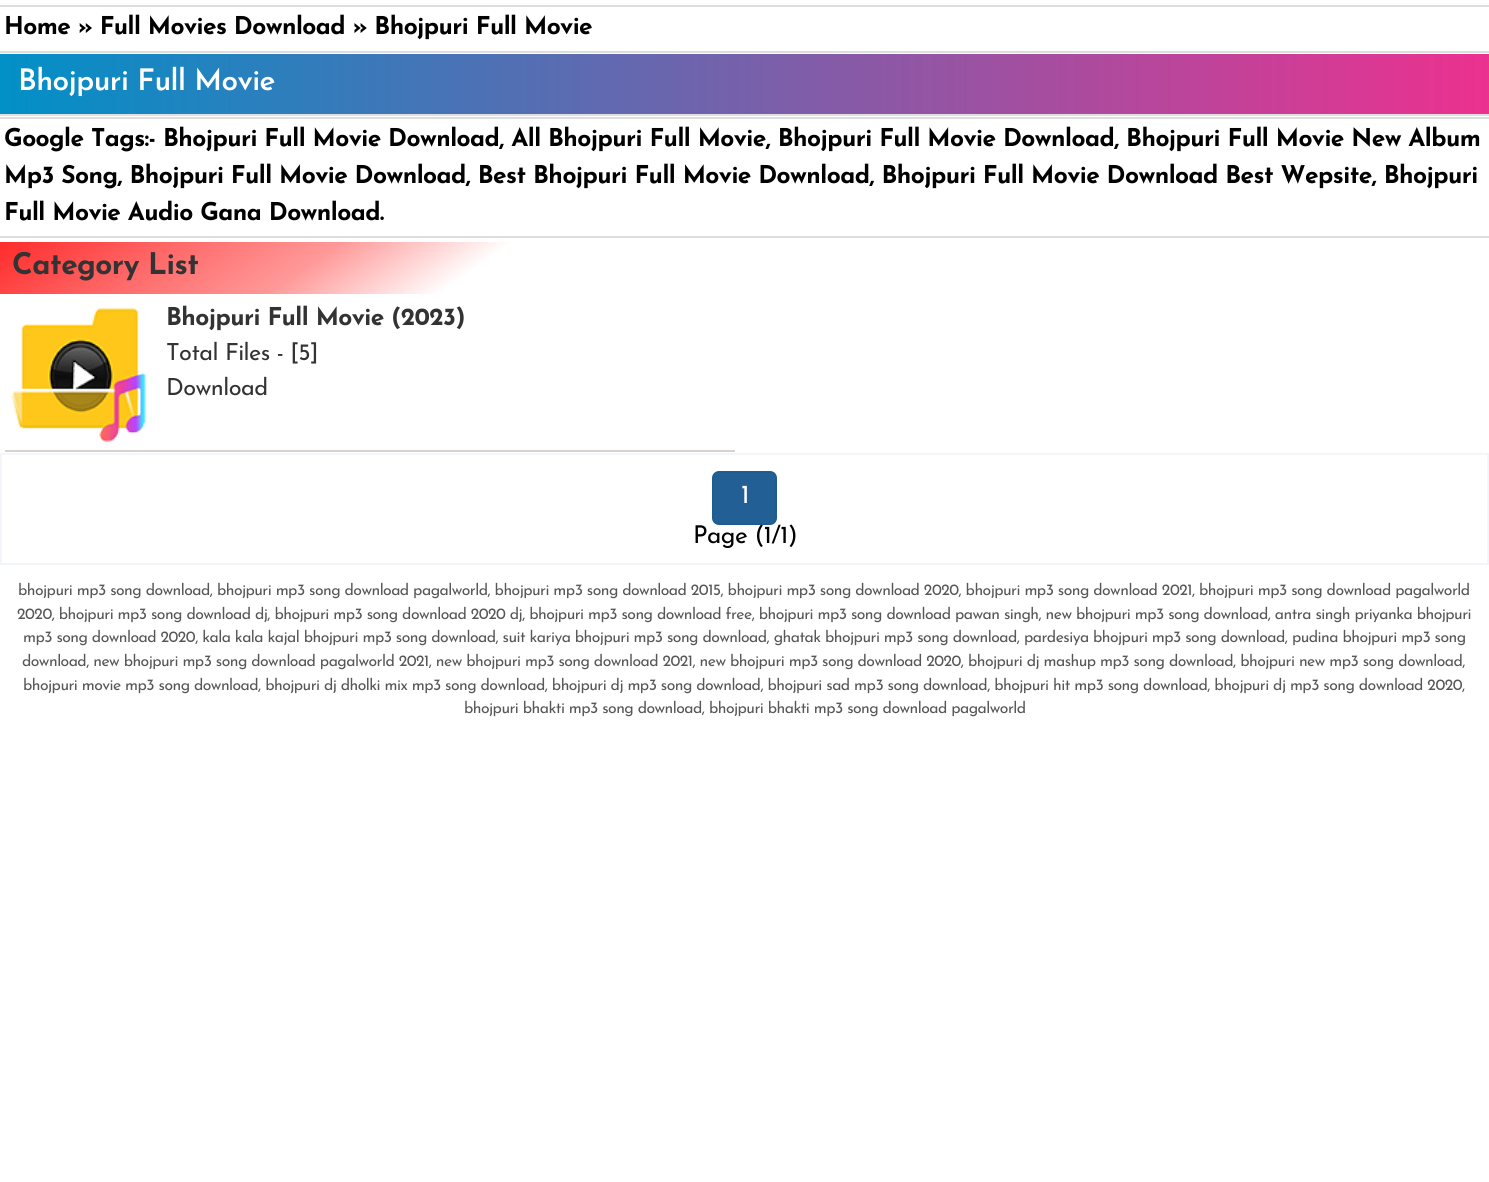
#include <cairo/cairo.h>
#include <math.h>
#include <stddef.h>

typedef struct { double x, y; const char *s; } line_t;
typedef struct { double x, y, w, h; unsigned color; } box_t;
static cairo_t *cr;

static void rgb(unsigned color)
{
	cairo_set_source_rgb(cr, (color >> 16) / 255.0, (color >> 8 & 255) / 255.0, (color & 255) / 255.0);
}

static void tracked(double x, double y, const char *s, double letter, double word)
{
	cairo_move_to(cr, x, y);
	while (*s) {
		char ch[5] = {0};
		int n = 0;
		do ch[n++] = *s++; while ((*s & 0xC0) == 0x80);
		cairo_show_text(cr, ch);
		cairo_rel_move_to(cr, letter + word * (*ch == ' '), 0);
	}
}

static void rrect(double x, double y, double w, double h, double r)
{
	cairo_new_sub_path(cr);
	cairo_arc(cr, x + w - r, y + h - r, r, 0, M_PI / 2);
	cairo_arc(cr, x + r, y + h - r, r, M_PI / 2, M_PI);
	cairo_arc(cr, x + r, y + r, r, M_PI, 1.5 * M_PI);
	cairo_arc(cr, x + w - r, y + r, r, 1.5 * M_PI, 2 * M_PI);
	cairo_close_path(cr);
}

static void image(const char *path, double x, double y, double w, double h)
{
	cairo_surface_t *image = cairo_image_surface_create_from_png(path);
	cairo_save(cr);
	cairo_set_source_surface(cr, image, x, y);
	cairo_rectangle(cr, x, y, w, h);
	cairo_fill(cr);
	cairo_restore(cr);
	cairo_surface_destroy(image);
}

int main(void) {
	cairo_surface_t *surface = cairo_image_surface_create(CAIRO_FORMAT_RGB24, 1489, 1182);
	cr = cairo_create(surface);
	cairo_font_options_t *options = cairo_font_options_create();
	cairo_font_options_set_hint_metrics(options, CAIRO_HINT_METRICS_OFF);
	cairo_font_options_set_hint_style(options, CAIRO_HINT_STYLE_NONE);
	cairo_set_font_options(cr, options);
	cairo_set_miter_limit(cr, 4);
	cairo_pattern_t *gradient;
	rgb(0xffffff);
	cairo_paint(cr);
	rgb(0xdddddd);
	cairo_rectangle(cr, 0, 5, 1489, 2);
	cairo_fill(cr);
	cairo_rectangle(cr, 0, 51, 1489, 2);
	cairo_fill(cr);
	gradient = cairo_pattern_create_linear(0, 84, 1489, 84);
	cairo_pattern_add_color_stop_rgba(gradient, 0, 0.004, 0.565, 0.78, 1);
	cairo_pattern_add_color_stop_rgba(gradient, 1, 0.925, 0.192, 0.561, 1);
	cairo_set_source(cr, gradient);
	cairo_pattern_destroy(gradient);
	cairo_rectangle(cr, 0, 54, 1489, 60);
	cairo_fill(cr);
	{
		static const box_t items[] = {
			{0, 114, 1489, 2, 0xe0e0e0},
			{0, 117, 1489, 2, 0xdddddd},
			{0, 236, 1489, 2, 0xdddddd},
		};
		for (size_t i = 0; i < sizeof items / sizeof *items; i++) {
			rgb(items[i].color);
			cairo_rectangle(cr, items[i].x, items[i].y, items[i].w, items[i].h);
			cairo_fill(cr);
		}
	}
	gradient = cairo_pattern_create_linear(1000, 634, 486, -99);
	cairo_pattern_add_color_stop_rgba(gradient, 0, 1, 1, 1, 1);
	cairo_pattern_add_color_stop_rgba(gradient, 0.67, 1, 1, 1, 1);
	cairo_pattern_add_color_stop_rgba(gradient, 0.78, 1, 0.6, 0.6, 1);
	cairo_pattern_add_color_stop_rgba(gradient, 0.89, 1, 0.4, 0.4, 1);
	cairo_pattern_add_color_stop_rgba(gradient, 1, 1, 0.169, 0.169, 1);
	cairo_set_source(cr, gradient);
	cairo_pattern_destroy(gradient);
	cairo_rectangle(cr, 0, 242, 509, 52);
	cairo_fill(cr);
	rgb(0xd8d1d1);
	cairo_rectangle(cr, 5, 450, 730, 2);
	cairo_fill(cr);
	image("img/1.png", 10, 307, 137, 136);
	cairo_rectangle(cr, 1, 454, 1487, 110);
	rgb(0xf2f6fa);
	cairo_stroke(cr);
	rgb(0x215f94);
	rrect(713, 472, 63, 52, 6);
	cairo_fill_preserve(cr);
	rgb(0x1f5c8f);
	cairo_stroke(cr);
	cairo_select_font_face(cr, "Josefin Sans", CAIRO_FONT_SLANT_NORMAL, CAIRO_FONT_WEIGHT_BOLD);
	cairo_set_font_size(cr, 24.5);
	rgb(0x000000);
	tracked(4, 34, "Home » Full Movies Download » Bhojpuri Full Movie", -0.53, 0);
	cairo_select_font_face(cr, "Josefin Sans SemiBold", CAIRO_FONT_SLANT_NORMAL, CAIRO_FONT_WEIGHT_NORMAL);
	cairo_set_font_size(cr, 29.75);
	rgb(0xffffff);
	tracked(18, 90, "Bhojpuri Full Movie", -0.53, 0);
	cairo_select_font_face(cr, "Josefin Sans", CAIRO_FONT_SLANT_NORMAL, CAIRO_FONT_WEIGHT_BOLD);
	cairo_set_font_size(cr, 24.5);
	rgb(0x000000);
	{
		static const line_t items[] = {
			{4, 146, "Google Tags:- Bhojpuri Full Movie Download, All Bhojpuri Full Movie, Bhojpuri Full Movie Download, Bhojpuri Full Movie New Album"},
			{4, 183, "Mp3 Song, Bhojpuri Full Movie Download, Best Bhojpuri Full Movie Download, Bhojpuri Full Movie Download Best Wepsite, Bhojpuri"},
			{4, 220, "Full Movie Audio Gana Download."},
		};
		for (size_t i = 0; i < sizeof items / sizeof *items; i++) {
			tracked(items[i].x, items[i].y, items[i].s, -0.53, 0);
		}
	}
	cairo_set_font_size(cr, 29.75);
	rgb(0x333333);
	tracked(12, 274, "Category List", -0.53, 0);
	cairo_set_font_size(cr, 24.5);
	tracked(166, 325, "Bhojpuri Full Movie (2023)", -0.53, 0);
	cairo_select_font_face(cr, "Josefin Sans", CAIRO_FONT_SLANT_NORMAL, CAIRO_FONT_WEIGHT_NORMAL);
	cairo_set_font_size(cr, 23.5);
	tracked(166, 360, "Total Files - [5]", -0.53, 0);
	tracked(166, 395, "Download", -0.53, 0);
	cairo_set_font_size(cr, 26);
	rgb(0xffffff);
	tracked(741, 503, "1", -0.53, 0);
	cairo_set_font_size(cr, 24.5);
	rgb(0x000000);
	tracked(693, 543, "Page (1/1)", -0.53, 0);
	cairo_set_font_size(cr, 15.75);
	rgb(0x575757);
	{
		static const line_t items[] = {
			{18, 595, "bhojpuri mp3 song download, bhojpuri mp3 song download pagalworld, bhojpuri mp3 song download 2015, bhojpuri mp3 song download 2020, bhojpuri mp3 song download 2021, bhojpuri mp3 song download pagalworld"},
			{17, 619, "2020, bhojpuri mp3 song download dj, bhojpuri mp3 song download 2020 dj, bhojpuri mp3 song download free, bhojpuri mp3 song download pawan singh, new bhojpuri mp3 song download, antra singh priyanka bhojpuri"},
			{23, 642, "mp3 song download 2020, kala kala kajal bhojpuri mp3 song download, suit kariya bhojpuri mp3 song download, ghatak bhojpuri mp3 song download, pardesiya bhojpuri mp3 song download, pudina bhojpuri mp3 song"},
			{22, 666, "download, new bhojpuri mp3 song download pagalworld 2021, new bhojpuri mp3 song download 2021, new bhojpuri mp3 song download 2020, bhojpuri dj mashup mp3 song download, bhojpuri new mp3 song download,"},
			{23, 690, "bhojpuri movie mp3 song download, bhojpuri dj dholki mix mp3 song download, bhojpuri dj mp3 song download, bhojpuri sad mp3 song download, bhojpuri hit mp3 song download, bhojpuri dj mp3 song download 2020,"},
			{464, 713, "bhojpuri bhakti mp3 song download, bhojpuri bhakti mp3 song download pagalworld"},
		};
		for (size_t i = 0; i < sizeof items / sizeof *items; i++) {
			tracked(items[i].x, items[i].y, items[i].s, -0.53, 0);
		}
	}
	cairo_surface_write_to_png(surface, "page.png");
	cairo_font_options_destroy(options);
	cairo_destroy(cr);
	cairo_surface_destroy(surface);
	return 0;
}
